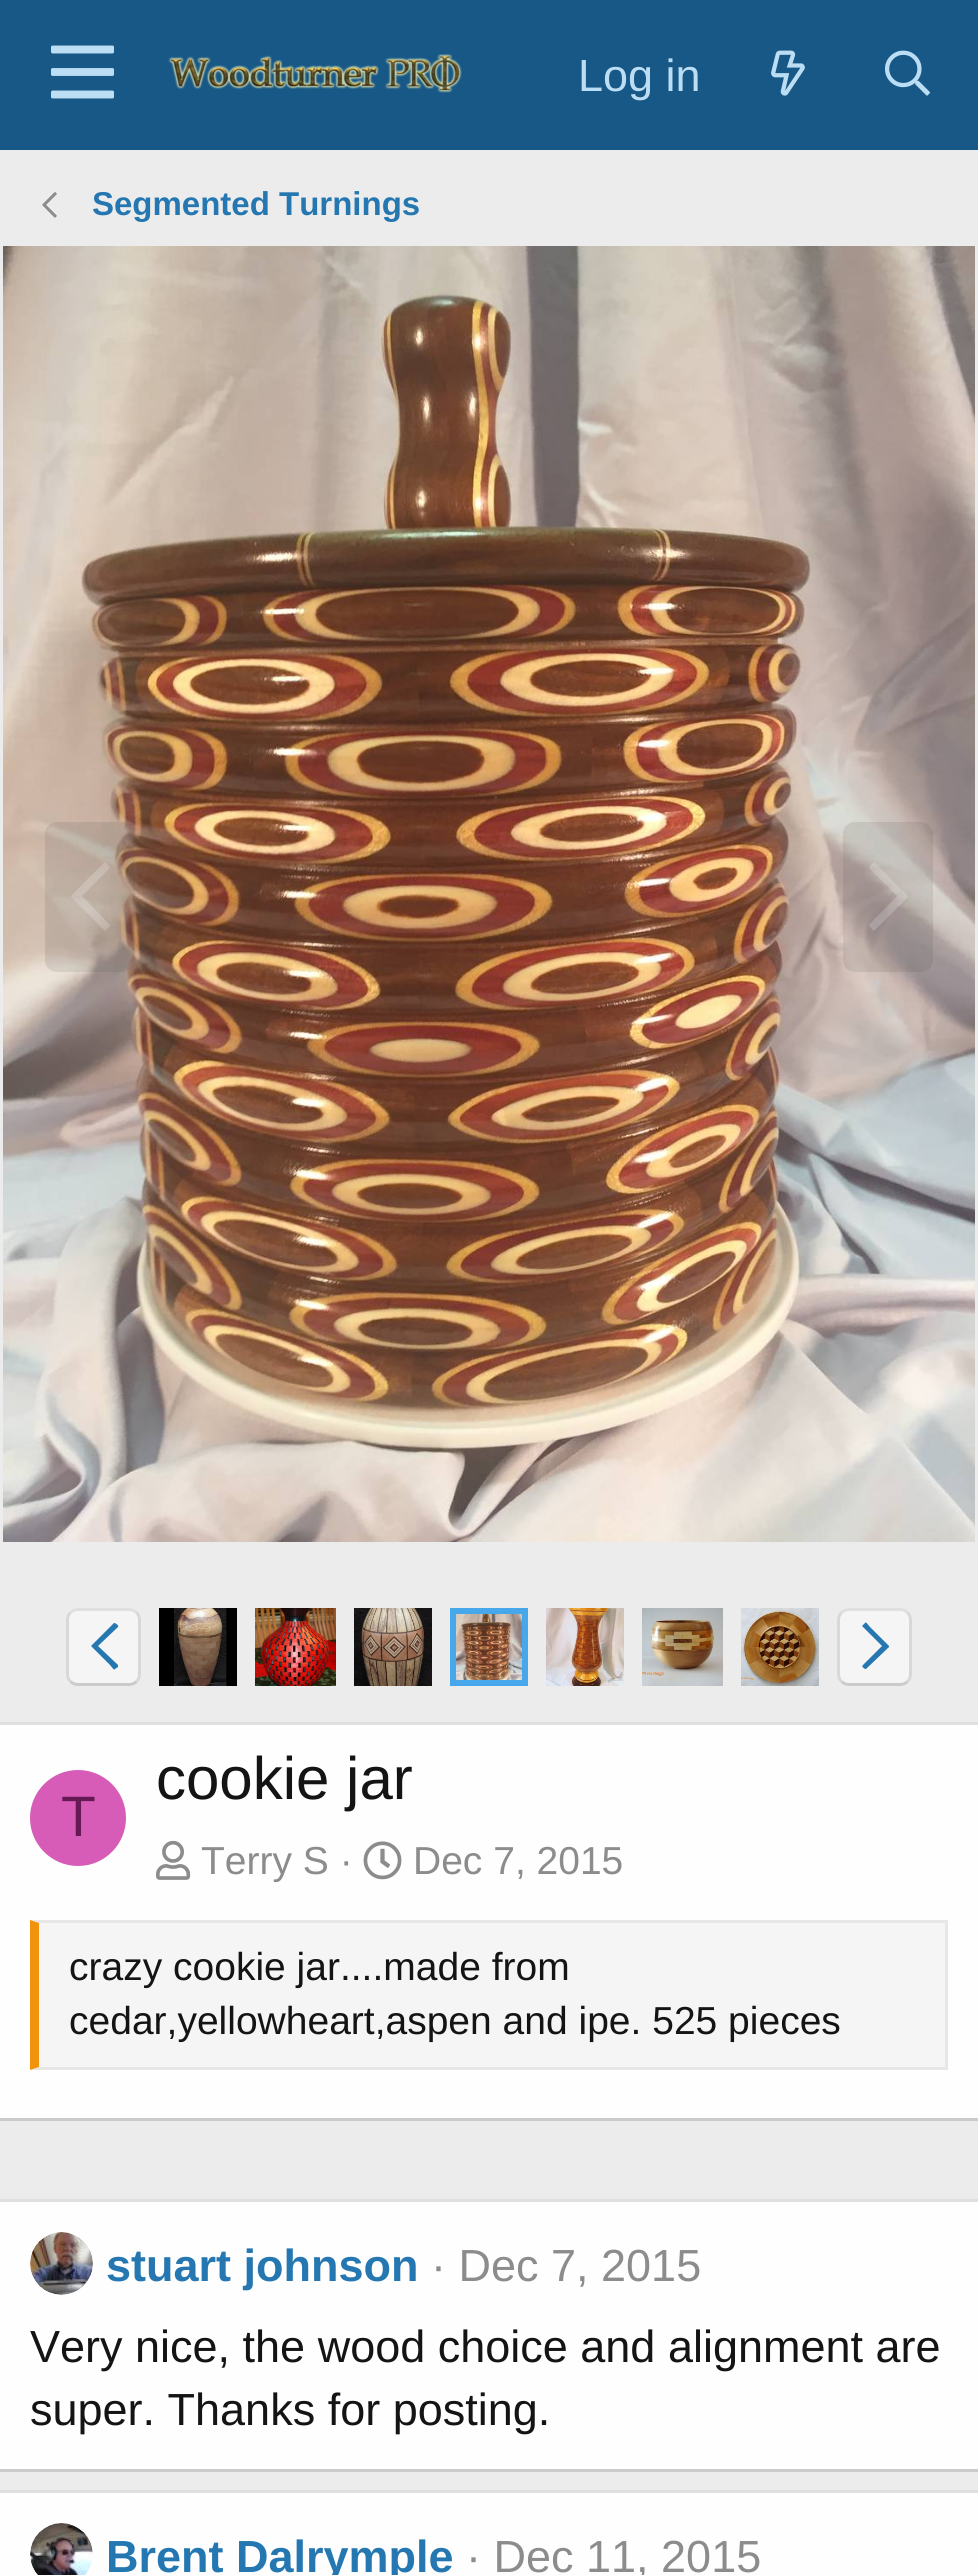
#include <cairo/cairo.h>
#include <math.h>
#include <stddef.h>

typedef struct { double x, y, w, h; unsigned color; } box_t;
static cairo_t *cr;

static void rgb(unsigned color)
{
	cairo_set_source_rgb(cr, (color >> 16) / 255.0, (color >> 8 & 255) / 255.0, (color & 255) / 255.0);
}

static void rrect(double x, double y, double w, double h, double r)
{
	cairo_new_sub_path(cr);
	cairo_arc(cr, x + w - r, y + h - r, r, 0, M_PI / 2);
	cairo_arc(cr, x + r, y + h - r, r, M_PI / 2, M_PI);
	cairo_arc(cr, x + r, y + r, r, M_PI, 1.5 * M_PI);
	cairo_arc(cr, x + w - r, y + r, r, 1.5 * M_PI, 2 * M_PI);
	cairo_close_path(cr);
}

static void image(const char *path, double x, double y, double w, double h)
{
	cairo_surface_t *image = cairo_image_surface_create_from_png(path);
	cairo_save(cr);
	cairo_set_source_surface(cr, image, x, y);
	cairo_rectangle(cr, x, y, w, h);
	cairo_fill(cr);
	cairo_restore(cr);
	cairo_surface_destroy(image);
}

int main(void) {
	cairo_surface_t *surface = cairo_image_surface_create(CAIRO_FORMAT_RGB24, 978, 2575);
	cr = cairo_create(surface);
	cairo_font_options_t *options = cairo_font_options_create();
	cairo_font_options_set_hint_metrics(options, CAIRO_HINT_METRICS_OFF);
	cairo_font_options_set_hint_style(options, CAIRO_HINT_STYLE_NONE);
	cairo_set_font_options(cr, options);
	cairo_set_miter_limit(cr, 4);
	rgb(0xececec);
	cairo_paint(cr);
	rgb(0x185886);
	cairo_rectangle(cr, 0, 0, 978, 150);
	cairo_fill(cr);
	image("img/1.png", 51, 45, 63, 54);
	image("img/2.png", 168, 54, 294, 39);
	image("img/3.png", 771, 50, 34, 46);
	image("img/4.png", 885, 50, 45, 46);
	image("img/5.png", 42, 192, 15, 26);
	image("img/6.png", 3, 246, 972, 1296);
	cairo_set_source_rgba(cr, 0.314, 0.314, 0.314, 0.14);
	rrect(45, 822, 90, 150, 12);
	cairo_fill(cr);
	cairo_set_source_rgba(cr, 1, 1, 1, 0.2);
	cairo_new_path(cr);
	cairo_move_to(cr, 106, 930);
	cairo_curve_to(cr, 106, 931, 105, 931, 104, 930);
	cairo_line_to(cr, 72, 898);
	cairo_curve_to(cr, 71, 897, 71, 896, 72, 895);
	cairo_line_to(cr, 104, 863);
	cairo_curve_to(cr, 105, 862, 106, 862, 106, 863);
	cairo_line_to(cr, 109, 866);
	cairo_curve_to(cr, 110, 867, 110, 868, 109, 869);
	cairo_line_to(cr, 82, 896);
	cairo_line_to(cr, 109, 924);
	cairo_curve_to(cr, 110, 925, 110, 926, 109, 927);
	cairo_close_path(cr);
	cairo_fill(cr);
	cairo_set_source_rgba(cr, 0.314, 0.314, 0.314, 0.14);
	rrect(843, 822, 90, 150, 12);
	cairo_fill(cr);
	cairo_set_source_rgba(cr, 1, 1, 1, 0.2);
	cairo_new_path(cr);
	cairo_move_to(cr, 873, 863);
	cairo_curve_to(cr, 874, 862, 874, 862, 875, 863);
	cairo_line_to(cr, 907, 895);
	cairo_curve_to(cr, 908, 896, 908, 897, 907, 898);
	cairo_line_to(cr, 875, 930);
	cairo_curve_to(cr, 874, 931, 874, 931, 873, 930);
	cairo_line_to(cr, 870, 927);
	cairo_curve_to(cr, 869, 926, 869, 925, 870, 924);
	cairo_line_to(cr, 897, 896);
	cairo_line_to(cr, 870, 869);
	cairo_curve_to(cr, 869, 868, 869, 867, 870, 866);
	cairo_close_path(cr);
	cairo_fill(cr);
	rgb(0xf5f5f5);
	rrect(66, 1608, 75, 78, 12);
	cairo_fill(cr);
	cairo_new_path(cr);
	cairo_move_to(cr, 70.5, 1612.5);
	cairo_curve_to(cr, 72.5, 1610.5, 75, 1609.5, 78, 1609.5);
	cairo_line_to(cr, 129, 1609.5);
	cairo_curve_to(cr, 132, 1609.5, 134.5, 1610.5, 136.5, 1612.5);
	rgb(0xdfdfdf);
	cairo_set_line_width(cr, 3);
	cairo_stroke(cr);
	cairo_new_path(cr);
	cairo_move_to(cr, 136.5, 1612.5);
	cairo_curve_to(cr, 138.5, 1614.5, 139.5, 1617, 139.5, 1620);
	cairo_line_to(cr, 139.5, 1674);
	cairo_curve_to(cr, 139.5, 1677, 138.5, 1679.5, 136.5, 1681.5);
	rgb(0xd8d8d8);
	cairo_stroke(cr);
	cairo_new_path(cr);
	cairo_move_to(cr, 136.5, 1681.5);
	cairo_curve_to(cr, 134.5, 1683.5, 132, 1684.5, 129, 1684.5);
	cairo_line_to(cr, 78, 1684.5);
	cairo_curve_to(cr, 75, 1684.5, 72.5, 1683.5, 70.5, 1681.5);
	rgb(0xcbcbcb);
	cairo_stroke(cr);
	cairo_new_path(cr);
	cairo_move_to(cr, 70.5, 1681.5);
	cairo_curve_to(cr, 68.5, 1679.5, 67.5, 1677, 67.5, 1674);
	cairo_line_to(cr, 67.5, 1620);
	cairo_curve_to(cr, 67.5, 1617, 68.5, 1614.5, 70.5, 1612.5);
	rgb(0xd8d8d8);
	cairo_stroke(cr);
	rgb(0x2577b1);
	cairo_new_path(cr);
	cairo_move_to(cr, 115, 1669);
	cairo_curve_to(cr, 114, 1671, 112, 1667, 110, 1665);
	cairo_line_to(cr, 91, 1646);
	cairo_line_to(cr, 92, 1645);
	cairo_line_to(cr, 114, 1623);
	cairo_line_to(cr, 115, 1623);
	cairo_curve_to(cr, 116, 1624, 119, 1625, 118, 1627);
	cairo_line_to(cr, 98, 1646);
	cairo_line_to(cr, 118, 1665);
	cairo_curve_to(cr, 118, 1666, 118, 1666, 118, 1667);
	cairo_close_path(cr);
	cairo_fill(cr);
	image("img/7.png", 159, 1608, 78, 78);
	image("img/8.png", 255, 1608, 81, 78);
	image("img/9.png", 354, 1608, 78, 78);
	cairo_rectangle(cr, 453, 1611, 72, 72);
	rgb(0x47a7eb);
	cairo_set_line_width(cr, 6);
	cairo_stroke(cr);
	image("img/10.png", 456, 1614, 66, 66);
	image("img/11.png", 546, 1608, 78, 78);
	image("img/12.png", 642, 1608, 81, 78);
	image("img/13.png", 741, 1608, 78, 78);
	rgb(0xf5f5f5);
	rrect(837, 1608, 75, 78, 12);
	cairo_fill(cr);
	cairo_new_path(cr);
	cairo_move_to(cr, 841.5, 1612.5);
	cairo_curve_to(cr, 843.5, 1610.5, 846, 1609.5, 849, 1609.5);
	cairo_line_to(cr, 900, 1609.5);
	cairo_curve_to(cr, 903, 1609.5, 905.5, 1610.5, 907.5, 1612.5);
	rgb(0xdfdfdf);
	cairo_set_line_width(cr, 3);
	cairo_stroke(cr);
	cairo_new_path(cr);
	cairo_move_to(cr, 907.5, 1612.5);
	cairo_curve_to(cr, 909.5, 1614.5, 910.5, 1617, 910.5, 1620);
	cairo_line_to(cr, 910.5, 1674);
	cairo_curve_to(cr, 910.5, 1677, 909.5, 1679.5, 907.5, 1681.5);
	rgb(0xd8d8d8);
	cairo_stroke(cr);
	cairo_new_path(cr);
	cairo_move_to(cr, 907.5, 1681.5);
	cairo_curve_to(cr, 905.5, 1683.5, 903, 1684.5, 900, 1684.5);
	cairo_line_to(cr, 849, 1684.5);
	cairo_curve_to(cr, 846, 1684.5, 843.5, 1683.5, 841.5, 1681.5);
	rgb(0xcbcbcb);
	cairo_stroke(cr);
	cairo_new_path(cr);
	cairo_move_to(cr, 841.5, 1681.5);
	cairo_curve_to(cr, 839.5, 1679.5, 838.5, 1677, 838.5, 1674);
	cairo_line_to(cr, 838.5, 1620);
	cairo_curve_to(cr, 838.5, 1617, 839.5, 1614.5, 841.5, 1612.5);
	rgb(0xd8d8d8);
	cairo_stroke(cr);
	rgb(0x2577b1);
	cairo_new_path(cr);
	cairo_move_to(cr, 865, 1623);
	cairo_curve_to(cr, 866, 1621, 868, 1625, 870, 1627);
	cairo_line_to(cr, 889, 1646);
	cairo_line_to(cr, 889, 1647);
	cairo_line_to(cr, 866, 1669);
	cairo_line_to(cr, 865, 1669);
	cairo_curve_to(cr, 864, 1668, 861, 1667, 863, 1665);
	cairo_line_to(cr, 882, 1646);
	cairo_line_to(cr, 863, 1627);
	cairo_curve_to(cr, 862, 1626, 862, 1626, 863, 1625);
	cairo_close_path(cr);
	cairo_fill(cr);
	{
		static const box_t items[] = {
			{0, 1725, 978, 393, 0xfefefe},
			{0, 1722, 978, 3, 0xdfdfdf},
			{0, 2118, 978, 3, 0xcbcbcb},
		};
		for (size_t i = 0; i < sizeof items / sizeof *items; i++) {
			rgb(items[i].color);
			cairo_rectangle(cr, items[i].x, items[i].y, items[i].w, items[i].h);
			cairo_fill(cr);
		}
	}
	rgb(0xd65cb8);
	cairo_arc(cr, 78, 1818, 48, 0, 2 * M_PI);
	cairo_fill(cr);
	image("img/14.png", 156, 1840, 35, 40);
	image("img/15.png", 363, 1841, 39, 39);
	rgb(0xf5f5f5);
	cairo_rectangle(cr, 39, 1923, 906, 144);
	cairo_fill(cr);
	rgb(0xe7e7e7);
	cairo_new_path(cr);
	cairo_move_to(cr, 30, 1920);
	cairo_line_to(cr, 948, 1920);
	cairo_line_to(cr, 945, 1923);
	cairo_line_to(cr, 39, 1923);
	cairo_close_path(cr);
	cairo_fill(cr);
	cairo_rectangle(cr, 945, 1920, 3, 150);
	cairo_fill(cr);
	cairo_new_path(cr);
	cairo_move_to(cr, 948, 2070);
	cairo_line_to(cr, 30, 2070);
	cairo_line_to(cr, 39, 2067);
	cairo_line_to(cr, 945, 2067);
	cairo_close_path(cr);
	cairo_fill(cr);
	rgb(0xf2930d);
	cairo_new_path(cr);
	cairo_move_to(cr, 30, 2070);
	cairo_line_to(cr, 30, 1920);
	cairo_line_to(cr, 39, 1923);
	cairo_line_to(cr, 39, 2067);
	cairo_close_path(cr);
	cairo_fill(cr);
	{
		static const box_t items[] = {
			{0, 2202, 978, 267, 0xfefefe},
			{0, 2199, 978, 3, 0xdfdfdf},
			{0, 2469, 978, 3, 0xcbcbcb},
		};
		for (size_t i = 0; i < sizeof items / sizeof *items; i++) {
			rgb(items[i].color);
			cairo_rectangle(cr, items[i].x, items[i].y, items[i].w, items[i].h);
			cairo_fill(cr);
		}
	}
	image("img/16.png", 30, 2232, 63, 63);
	rgb(0xfefefe);
	cairo_rectangle(cr, 0, 2493, 978, 82);
	cairo_fill(cr);
	rgb(0xdfdfdf);
	cairo_rectangle(cr, 0, 2490, 978, 3);
	cairo_fill(cr);
	image("img/17.png", 30, 2523, 63, 52);
	cairo_select_font_face(cr, "Liberation Sans", CAIRO_FONT_SLANT_NORMAL, CAIRO_FONT_WEIGHT_NORMAL);
	cairo_set_font_size(cr, 45);
	rgb(0xbcdef5);
	cairo_move_to(cr, 578, 91);
	cairo_show_text(cr, "Log in");
	cairo_select_font_face(cr, "Liberation Sans", CAIRO_FONT_SLANT_NORMAL, CAIRO_FONT_WEIGHT_BOLD);
	cairo_set_font_size(cr, 33);
	rgb(0x2577b1);
	cairo_move_to(cr, 92, 215);
	cairo_show_text(cr, "Segmented Turnings");
	cairo_select_font_face(cr, "Liberation Sans", CAIRO_FONT_SLANT_NORMAL, CAIRO_FONT_WEIGHT_NORMAL);
	cairo_set_font_size(cr, 57);
	rgb(0x661a53);
	cairo_move_to(cr, 61, 1836);
	cairo_show_text(cr, "T");
	cairo_set_font_size(cr, 60);
	rgb(0x141414);
	cairo_move_to(cr, 156, 1799);
	cairo_show_text(cr, "cookie jar");
	cairo_set_font_size(cr, 39);
	rgb(0x8c8c8c);
	cairo_move_to(cr, 201, 1874);
	cairo_show_text(cr, "Terry S ·");
	cairo_move_to(cr, 413, 1874);
	cairo_show_text(cr, "Dec 7, 2015");
	rgb(0x141414);
	cairo_move_to(cr, 69, 1980);
	cairo_show_text(cr, "crazy cookie jar....made from");
	cairo_move_to(cr, 69, 2034);
	cairo_show_text(cr, "cedar,yellowheart,aspen and ipe. 525 pieces");
	cairo_select_font_face(cr, "Liberation Sans", CAIRO_FONT_SLANT_NORMAL, CAIRO_FONT_WEIGHT_BOLD);
	cairo_set_font_size(cr, 45);
	rgb(0x2577b1);
	cairo_move_to(cr, 106, 2281);
	cairo_show_text(cr, "stuart johnson");
	cairo_select_font_face(cr, "Liberation Sans", CAIRO_FONT_SLANT_NORMAL, CAIRO_FONT_WEIGHT_NORMAL);
	rgb(0x8c8c8c);
	cairo_move_to(cr, 431, 2281);
	cairo_show_text(cr, "· Dec 7, 2015");
	rgb(0x141414);
	cairo_move_to(cr, 30, 2362);
	cairo_show_text(cr, "Very nice, the wood choice and alignment are");
	cairo_move_to(cr, 30, 2425);
	cairo_show_text(cr, "super. Thanks for posting.");
	cairo_select_font_face(cr, "Liberation Sans", CAIRO_FONT_SLANT_NORMAL, CAIRO_FONT_WEIGHT_BOLD);
	rgb(0x2577b1);
	cairo_move_to(cr, 106, 2572);
	cairo_show_text(cr, "Brent Dalrymple");
	cairo_select_font_face(cr, "Liberation Sans", CAIRO_FONT_SLANT_NORMAL, CAIRO_FONT_WEIGHT_NORMAL);
	rgb(0x8c8c8c);
	cairo_move_to(cr, 466, 2572);
	cairo_show_text(cr, "· Dec 11, 2015");
	cairo_surface_write_to_png(surface, "page.png");
	cairo_font_options_destroy(options);
	cairo_destroy(cr);
	cairo_surface_destroy(surface);
	return 0;
}
